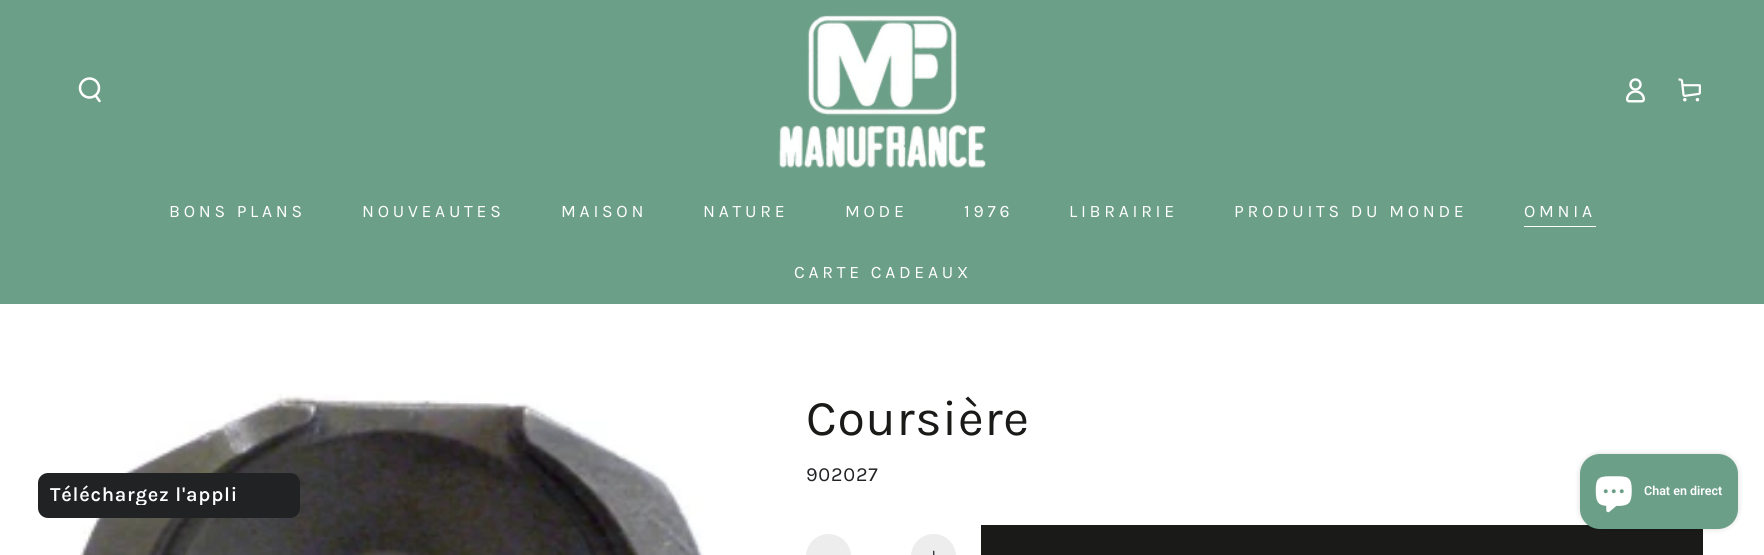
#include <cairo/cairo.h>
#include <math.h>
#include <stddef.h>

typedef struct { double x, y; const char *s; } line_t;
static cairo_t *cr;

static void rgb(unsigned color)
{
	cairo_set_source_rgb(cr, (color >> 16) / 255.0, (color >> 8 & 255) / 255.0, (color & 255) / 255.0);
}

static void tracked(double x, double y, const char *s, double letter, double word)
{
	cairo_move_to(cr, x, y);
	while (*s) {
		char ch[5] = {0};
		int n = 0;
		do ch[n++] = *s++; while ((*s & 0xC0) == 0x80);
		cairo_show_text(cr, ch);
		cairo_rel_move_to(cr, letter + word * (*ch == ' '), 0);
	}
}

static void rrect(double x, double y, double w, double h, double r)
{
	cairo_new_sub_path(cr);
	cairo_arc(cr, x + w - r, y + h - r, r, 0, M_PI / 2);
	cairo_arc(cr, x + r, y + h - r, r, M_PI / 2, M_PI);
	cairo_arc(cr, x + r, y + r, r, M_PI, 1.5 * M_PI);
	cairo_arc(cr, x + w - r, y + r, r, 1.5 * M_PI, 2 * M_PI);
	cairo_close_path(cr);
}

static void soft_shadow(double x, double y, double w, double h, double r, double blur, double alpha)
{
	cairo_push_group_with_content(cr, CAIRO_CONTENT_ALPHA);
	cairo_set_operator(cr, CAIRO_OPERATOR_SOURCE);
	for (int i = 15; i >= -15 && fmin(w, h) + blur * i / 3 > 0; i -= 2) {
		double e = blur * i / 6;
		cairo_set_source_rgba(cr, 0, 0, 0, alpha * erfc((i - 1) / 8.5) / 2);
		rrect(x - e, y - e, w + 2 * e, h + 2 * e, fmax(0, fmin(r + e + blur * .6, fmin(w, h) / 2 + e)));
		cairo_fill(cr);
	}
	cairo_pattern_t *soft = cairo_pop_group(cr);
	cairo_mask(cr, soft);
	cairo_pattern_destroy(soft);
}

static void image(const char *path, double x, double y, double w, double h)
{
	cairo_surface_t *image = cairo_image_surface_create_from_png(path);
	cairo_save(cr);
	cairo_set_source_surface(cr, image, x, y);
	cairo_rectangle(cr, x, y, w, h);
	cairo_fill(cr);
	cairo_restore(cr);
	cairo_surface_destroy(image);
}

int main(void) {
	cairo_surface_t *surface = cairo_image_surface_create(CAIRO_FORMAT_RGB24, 1764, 555);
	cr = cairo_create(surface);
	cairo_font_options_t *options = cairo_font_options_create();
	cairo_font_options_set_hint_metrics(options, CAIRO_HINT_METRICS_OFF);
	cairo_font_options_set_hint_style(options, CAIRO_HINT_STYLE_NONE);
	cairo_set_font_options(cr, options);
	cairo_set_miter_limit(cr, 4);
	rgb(0xffffff);
	cairo_paint(cr);
	rgb(0x6c9f88);
	cairo_rectangle(cr, 0, 0, 1764, 304);
	cairo_fill(cr);
	cairo_arc(cr, 89.5, 88, 9.5, 0, 2 * M_PI);
	rgb(0xffffff);
	cairo_set_line_width(cr, 2.5);
	cairo_stroke(cr);
	cairo_new_path(cr);
	cairo_move_to(cr, 95.5, 95.5);
	cairo_line_to(cr, 99.5, 101);
	cairo_set_line_cap(cr, CAIRO_LINE_CAP_ROUND);
	cairo_stroke(cr);
	image("img/1.png", 778, 15, 208, 153);
	image("img/2.png", 1626, 78, 19, 25);
	image("img/3.png", 1678, 78, 23, 24);
	cairo_rectangle(cr, 1524, 226, 72, 1);
	cairo_fill(cr);
	image("img/4.png", 80, 393, 624, 162);
	rgb(0xededee);
	rrect(806, 534, 45, 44, 22.5);
	cairo_fill(cr);
	rrect(911, 534, 45, 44, 22.5);
	cairo_fill(cr);
	image("img/5.png", 933, 550, 2, 5);
	rgb(0x1a1b18);
	cairo_rectangle(cr, 981, 525, 722, 30);
	cairo_fill(cr);
	rgb(0x202223);
	rrect(38, 473, 262, 45, 10);
	cairo_fill(cr);
	rgb(0x000000);
	soft_shadow(1580, 454, 158, 75, 20, 3, 0.15);
	rgb(0x6c9f88);
	rrect(1580, 454, 158, 75, 20);
	cairo_fill(cr);
	image("img/6.png", 1595, 476, 37, 37);
	cairo_select_font_face(cr, "Karla", CAIRO_FONT_SLANT_NORMAL, CAIRO_FONT_WEIGHT_NORMAL);
	cairo_set_font_size(cr, 17.5);
	rgb(0xffffff);
	{
		static const line_t items[] = {
			{169, 217, "BONS PLANS"},
			{362, 217, "NOUVEAUTES"},
			{561, 217, "MAISON"},
			{703, 217, "NATURE"},
			{845, 217, "MODE"},
			{964, 217, "1976"},
			{1069, 217, "LIBRAIRIE"},
			{1234, 217, "PRODUITS DU MONDE"},
			{1524, 217, "OMNIA"},
			{794, 278, "CARTE CADEAUX"},
		};
		for (size_t i = 0; i < sizeof items / sizeof *items; i++) {
			tracked(items[i].x, items[i].y, items[i].s, 3.75, 0);
		}
	}
	cairo_set_font_size(cr, 50);
	rgb(0x1a1b18);
	tracked(806, 435, "Coursière", 0.75, 0);
	cairo_set_font_size(cr, 20);
	rgb(0x212326);
	tracked(806, 481, "902027", 0.75, 0);
	cairo_save(cr);
	cairo_rectangle(cr, 50, 485, 188, 20);
	cairo_clip(cr);
	cairo_select_font_face(cr, "Karla SemiBold", CAIRO_FONT_SLANT_NORMAL, CAIRO_FONT_WEIGHT_NORMAL);
	rgb(0xffffff);
	tracked(50, 501, "Téléchargez l'appli", 0.75, 0);
	cairo_restore(cr);
	cairo_select_font_face(cr, "Roboto SemiBold", CAIRO_FONT_SLANT_NORMAL, CAIRO_FONT_WEIGHT_NORMAL);
	cairo_set_font_size(cr, 12.5);
	rgb(0xffffff);
	cairo_move_to(cr, 1644, 495);
	cairo_show_text(cr, "Chat en direct");
	cairo_surface_write_to_png(surface, "page.png");
	cairo_font_options_destroy(options);
	cairo_destroy(cr);
	cairo_surface_destroy(surface);
	return 0;
}
